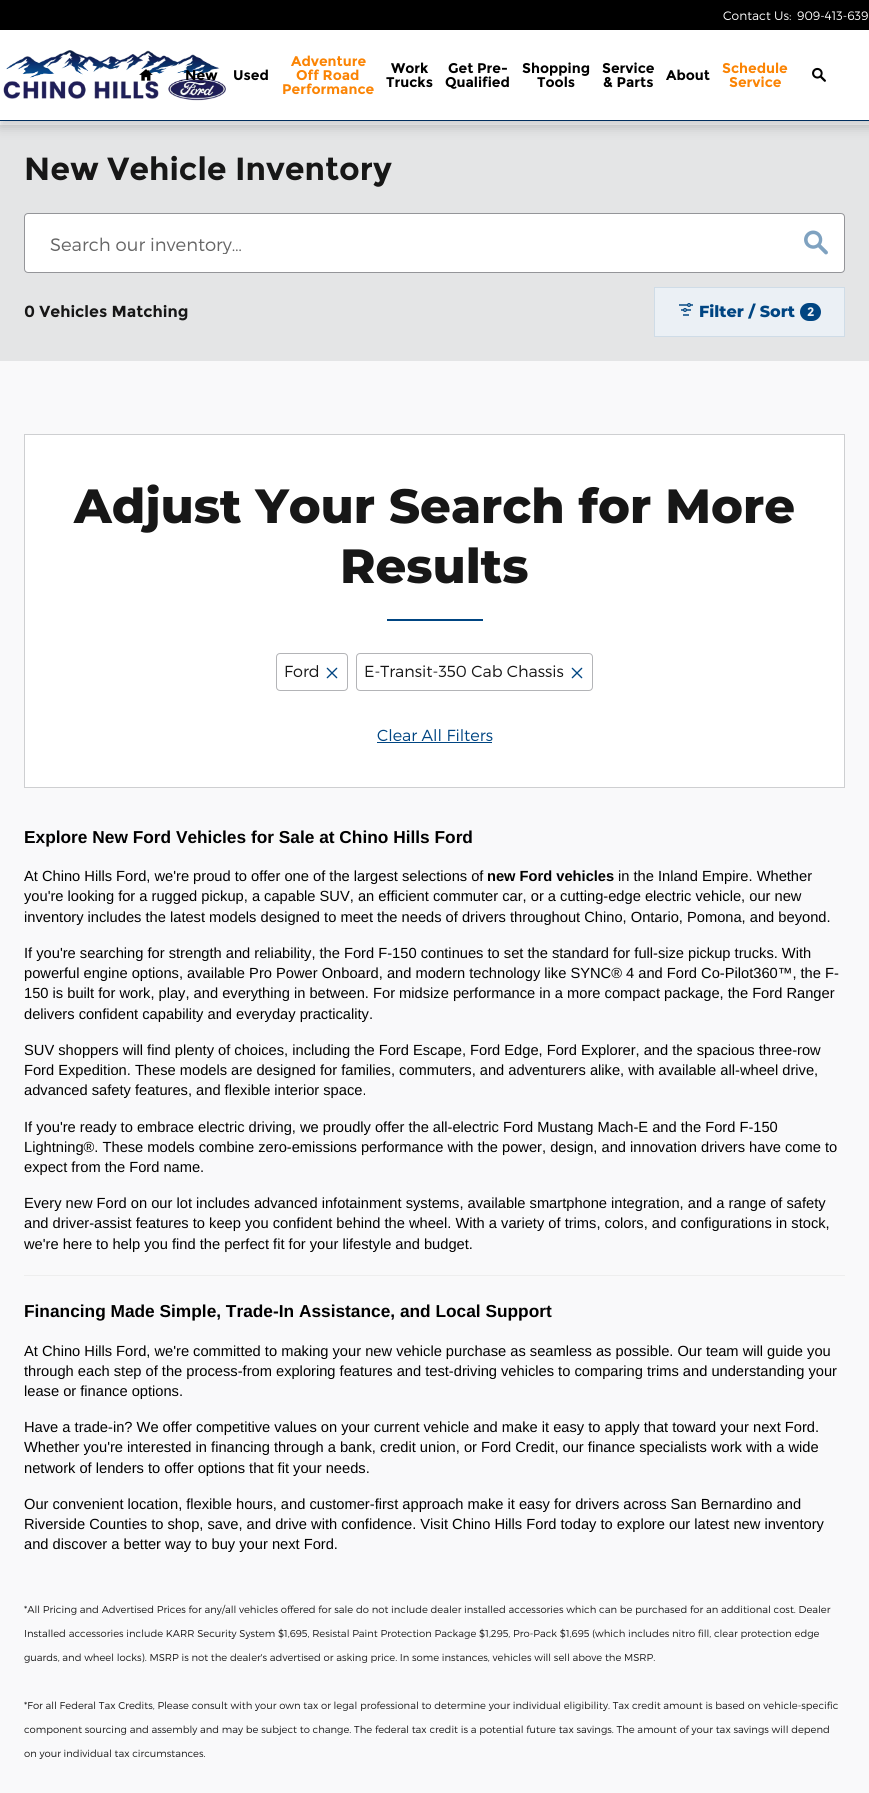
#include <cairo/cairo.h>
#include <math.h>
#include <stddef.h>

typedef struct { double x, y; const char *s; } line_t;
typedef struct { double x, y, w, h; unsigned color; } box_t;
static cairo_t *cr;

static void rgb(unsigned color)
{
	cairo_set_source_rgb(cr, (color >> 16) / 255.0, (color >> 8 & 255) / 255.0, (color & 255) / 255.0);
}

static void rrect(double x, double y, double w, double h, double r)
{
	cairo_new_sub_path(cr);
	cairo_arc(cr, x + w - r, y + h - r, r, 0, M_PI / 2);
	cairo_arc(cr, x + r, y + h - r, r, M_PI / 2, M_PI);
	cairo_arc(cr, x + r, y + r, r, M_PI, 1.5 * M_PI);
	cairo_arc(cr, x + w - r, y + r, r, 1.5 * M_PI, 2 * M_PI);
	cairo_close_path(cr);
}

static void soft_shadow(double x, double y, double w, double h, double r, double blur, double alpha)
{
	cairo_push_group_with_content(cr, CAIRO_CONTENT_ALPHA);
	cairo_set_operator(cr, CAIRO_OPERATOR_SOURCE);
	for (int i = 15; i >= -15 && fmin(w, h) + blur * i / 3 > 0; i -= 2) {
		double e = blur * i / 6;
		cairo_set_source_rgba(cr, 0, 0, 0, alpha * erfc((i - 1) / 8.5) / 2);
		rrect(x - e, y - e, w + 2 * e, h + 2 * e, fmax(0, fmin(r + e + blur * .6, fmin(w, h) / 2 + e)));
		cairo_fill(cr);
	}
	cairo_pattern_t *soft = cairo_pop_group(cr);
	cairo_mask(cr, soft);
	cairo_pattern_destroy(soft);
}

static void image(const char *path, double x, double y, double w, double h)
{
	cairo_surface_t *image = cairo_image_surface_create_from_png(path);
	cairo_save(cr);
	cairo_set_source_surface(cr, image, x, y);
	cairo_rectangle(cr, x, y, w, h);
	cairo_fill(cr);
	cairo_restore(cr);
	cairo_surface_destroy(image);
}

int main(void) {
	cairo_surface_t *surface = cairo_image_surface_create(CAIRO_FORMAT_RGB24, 869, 1793);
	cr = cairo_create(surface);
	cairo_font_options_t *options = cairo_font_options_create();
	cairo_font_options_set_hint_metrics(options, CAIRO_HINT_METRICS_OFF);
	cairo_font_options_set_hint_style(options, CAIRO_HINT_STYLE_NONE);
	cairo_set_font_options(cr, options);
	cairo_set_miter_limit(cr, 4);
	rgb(0xf9f9fa);
	cairo_paint(cr);
	rgb(0xe4e5e6);
	cairo_rectangle(cr, 0, 125, 869, 236);
	cairo_fill(cr);
	rgb(0x000000);
	soft_shadow(0, 6, 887, 121, 0, 6, 0.18);
	{
		static const box_t items[] = {
			{0, 30, 869, 90, 0xffffff},
			{0, 120, 869, 1, 0x002f60},
			{0, 0, 869, 30, 0x000000},
		};
		for (size_t i = 0; i < sizeof items / sizeof *items; i++) {
			rgb(items[i].color);
			cairo_rectangle(cr, items[i].x, items[i].y, items[i].w, items[i].h);
			cairo_fill(cr);
		}
	}
	image("img/1.png", 3, 50, 223, 51);
	image("img/2.png", 139, 69, 14, 12);
	image("img/3.png", 812, 67, 14, 15);
	rgb(0xffffff);
	rrect(24.5, 213.5, 820, 59, 3.5);
	cairo_fill_preserve(cr);
	rgb(0x949599);
	cairo_set_line_width(cr, 1);
	cairo_stroke(cr);
	image("img/4.png", 804, 230, 24, 25);
	rgb(0xebf0f5);
	cairo_rectangle(cr, 654.5, 287.5, 190, 49);
	cairo_fill_preserve(cr);
	rgb(0xcfdce7);
	cairo_stroke(cr);
	image("img/5.png", 679, 303, 14, 13);
	rgb(0x004582);
	rrect(800, 303, 21, 18, 9);
	cairo_fill(cr);
	rgb(0xffffff);
	cairo_rectangle(cr, 24.5, 434.5, 820, 353);
	cairo_fill_preserve(cr);
	rgb(0xcecfd1);
	cairo_stroke(cr);
	rgb(0x004582);
	cairo_rectangle(cr, 387, 619, 96, 2);
	cairo_fill(cr);
	rrect(276.5, 653.5, 71, 37, 3.5);
	rgb(0xb3b4b7);
	cairo_stroke(cr);
	image("img/6.png", 326, 667, 12, 12);
	rrect(356.5, 653.5, 236, 37, 3.5);
	cairo_stroke(cr);
	image("img/6.png", 571, 667, 12, 12);
	rgb(0x004582);
	cairo_rectangle(cr, 377, 742, 115, 1);
	cairo_fill(cr);
	rgb(0xeeeeee);
	cairo_rectangle(cr, 24, 1275, 821, 1);
	cairo_fill(cr);
	cairo_select_font_face(cr, "Montserrat Light", CAIRO_FONT_SLANT_NORMAL, CAIRO_FONT_WEIGHT_NORMAL);
	cairo_set_font_size(cr, 12.25);
	rgb(0xffffff);
	cairo_move_to(cr, 723, 20);
	cairo_show_text(cr, "Contact Us:");
	cairo_move_to(cr, 797, 20);
	cairo_show_text(cr, "909-413-639");
	cairo_select_font_face(cr, "Montserrat", CAIRO_FONT_SLANT_NORMAL, CAIRO_FONT_WEIGHT_BOLD);
	cairo_set_font_size(cr, 14);
	rgb(0x000000);
	cairo_move_to(cr, 185, 80);
	cairo_show_text(cr, "New");
	cairo_move_to(cr, 233, 80);
	cairo_show_text(cr, "Used");
	rgb(0xfb8404);
	{
		static const line_t items[] = {
			{291, 66, "Adventure"},
			{296, 80, "Off Road"},
			{282, 94, "Performance"},
		};
		for (size_t i = 0; i < sizeof items / sizeof *items; i++) {
			cairo_move_to(cr, items[i].x, items[i].y);
			cairo_show_text(cr, items[i].s);
		}
	}
	rgb(0x000000);
	{
		static const line_t items[] = {
			{391, 73, "Work"},
			{386, 87, "Trucks"},
			{448, 73, "Get Pre-"},
			{445, 87, "Qualified"},
			{522, 73, "Shopping"},
			{537, 87, "Tools"},
			{602, 73, "Service"},
			{603, 87, "& Parts"},
			{666, 80, "About"},
		};
		for (size_t i = 0; i < sizeof items / sizeof *items; i++) {
			cairo_move_to(cr, items[i].x, items[i].y);
			cairo_show_text(cr, items[i].s);
		}
	}
	rgb(0xfb8404);
	cairo_move_to(cr, 722, 73);
	cairo_show_text(cr, "Schedule");
	cairo_move_to(cr, 729, 87);
	cairo_show_text(cr, "Service");
	cairo_set_font_size(cr, 32);
	rgb(0x171717);
	cairo_move_to(cr, 24, 180);
	cairo_show_text(cr, "New Vehicle Inventory");
	cairo_save(cr);
	cairo_rectangle(cr, 50, 233, 709, 21);
	cairo_clip(cr);
	cairo_select_font_face(cr, "Montserrat Light", CAIRO_FONT_SLANT_NORMAL, CAIRO_FONT_WEIGHT_NORMAL);
	cairo_set_font_size(cr, 18);
	rgb(0x666666);
	cairo_move_to(cr, 50, 251);
	cairo_show_text(cr, "Search our inventory…");
	cairo_restore(cr);
	cairo_set_font_size(cr, 16);
	cairo_move_to(cr, 24, 317);
	cairo_show_text(cr, "0 Vehicles Matching");
	cairo_select_font_face(cr, "Montserrat ExtraBold", CAIRO_FONT_SLANT_NORMAL, CAIRO_FONT_WEIGHT_NORMAL);
	rgb(0x004582);
	cairo_move_to(cr, 699, 317);
	cairo_show_text(cr, "Filter / Sort");
	cairo_select_font_face(cr, "Montserrat", CAIRO_FONT_SLANT_NORMAL, CAIRO_FONT_WEIGHT_BOLD);
	cairo_set_font_size(cr, 12.25);
	rgb(0xebf0f5);
	cairo_move_to(cr, 807, 316);
	cairo_show_text(cr, "2");
	cairo_select_font_face(cr, "Montserrat ExtraBold", CAIRO_FONT_SLANT_NORMAL, CAIRO_FONT_WEIGHT_NORMAL);
	cairo_set_font_size(cr, 48);
	rgb(0x171717);
	cairo_move_to(cr, 74, 523);
	cairo_show_text(cr, "Adjust Your Search for More");
	cairo_move_to(cr, 340, 583);
	cairo_show_text(cr, "Results");
	cairo_select_font_face(cr, "Montserrat Light", CAIRO_FONT_SLANT_NORMAL, CAIRO_FONT_WEIGHT_NORMAL);
	cairo_set_font_size(cr, 16);
	cairo_move_to(cr, 284, 677);
	cairo_show_text(cr, "Ford");
	cairo_move_to(cr, 364, 677);
	cairo_show_text(cr, "E-Transit-350 Cab Chassis");
	rgb(0x004582);
	cairo_move_to(cr, 377, 741);
	cairo_show_text(cr, "Clear All Filters");
	cairo_select_font_face(cr, "Liberation Sans", CAIRO_FONT_SLANT_NORMAL, CAIRO_FONT_WEIGHT_BOLD);
	cairo_set_font_size(cr, 17.3);
	rgb(0x000000);
	cairo_move_to(cr, 24, 843);
	cairo_show_text(cr, "Explore New Ford Vehicles for Sale at Chino Hills Ford");
	cairo_select_font_face(cr, "Liberation Sans", CAIRO_FONT_SLANT_NORMAL, CAIRO_FONT_WEIGHT_NORMAL);
	cairo_set_font_size(cr, 14.67);
	cairo_move_to(cr, 24, 881);
	cairo_show_text(cr, "At Chino Hills Ford, we're proud to offer one of the largest selections of");
	cairo_select_font_face(cr, "Liberation Sans", CAIRO_FONT_SLANT_NORMAL, CAIRO_FONT_WEIGHT_BOLD);
	cairo_move_to(cr, 487, 881);
	cairo_show_text(cr, "new Ford vehicles");
	cairo_select_font_face(cr, "Liberation Sans", CAIRO_FONT_SLANT_NORMAL, CAIRO_FONT_WEIGHT_NORMAL);
	{
		static const line_t items[] = {
			{618, 881, "in the Inland Empire. Whether"},
			{24, 901, "you're looking for a rugged pickup, a capable SUV, an efficient commuter car, or a cutting-edge electric vehicle, our new"},
			{24, 922, "inventory includes the latest models designed to meet the needs of drivers throughout Chino, Ontario, Pomona, and beyond."},
			{24, 958, "If you're searching for strength and reliability, the Ford F-150 continues to set the standard for full-size pickup trucks. With"},
			{24, 978, "powerful engine options, available Pro Power Onboard, and modern technology like SYNC® 4 and Ford Co-Pilot360™, the F-"},
			{24, 998, "150 is built for work, play, and everything in between. For midsize performance in a more compact package, the Ford Ranger"},
			{24, 1019, "delivers confident capability and everyday practicality."},
			{24, 1055, "SUV shoppers will find plenty of choices, including the Ford Escape, Ford Edge, Ford Explorer, and the spacious three-row"},
			{24, 1075, "Ford Expedition. These models are designed for families, commuters, and adventurers alike, with available all-wheel drive,"},
			{24, 1095, "advanced safety features, and flexible interior space."},
			{24, 1132, "If you're ready to embrace electric driving, we proudly offer the all-electric Ford Mustang Mach-E and the Ford F-150"},
			{24, 1152, "Lightning®. These models combine zero-emissions performance with the power, design, and innovation drivers have come to"},
			{24, 1172, "expect from the Ford name."},
			{24, 1208, "Every new Ford on our lot includes advanced infotainment systems, available smartphone integration, and a range of safety"},
			{24, 1228, "and driver-assist features to keep you confident behind the wheel. With a variety of trims, colors, and configurations in stock,"},
			{24, 1249, "we're here to help you find the perfect fit for your lifestyle and budget."},
		};
		for (size_t i = 0; i < sizeof items / sizeof *items; i++) {
			cairo_move_to(cr, items[i].x, items[i].y);
			cairo_show_text(cr, items[i].s);
		}
	}
	cairo_select_font_face(cr, "Liberation Sans", CAIRO_FONT_SLANT_NORMAL, CAIRO_FONT_WEIGHT_BOLD);
	cairo_set_font_size(cr, 17.3);
	cairo_move_to(cr, 24, 1317);
	cairo_show_text(cr, "Financing Made Simple, Trade-In Assistance, and Local Support");
	cairo_select_font_face(cr, "Liberation Sans", CAIRO_FONT_SLANT_NORMAL, CAIRO_FONT_WEIGHT_NORMAL);
	cairo_set_font_size(cr, 14.67);
	{
		static const line_t items[] = {
			{24, 1356, "At Chino Hills Ford, we're committed to making your new vehicle purchase as seamless as possible. Our team will guide you"},
			{24, 1376, "through each step of the process-from exploring features and test-driving vehicles to comparing trims and understanding your"},
			{24, 1396, "lease or finance options."},
			{24, 1432, "Have a trade-in? We offer competitive values on your current vehicle and make it easy to apply that toward your next Ford."},
			{24, 1452, "Whether you're interested in financing through a bank, credit union, or Ford Credit, our finance specialists work with a wide"},
			{24, 1473, "network of lenders to offer options that fit your needs."},
			{24, 1509, "Our convenient location, flexible hours, and customer-first approach make it easy for drivers across San Bernardino and"},
			{24, 1529, "Riverside Counties to shop, save, and drive with confidence. Visit Chino Hills Ford today to explore our latest new inventory"},
			{24, 1549, "and discover a better way to buy your next Ford."},
		};
		for (size_t i = 0; i < sizeof items / sizeof *items; i++) {
			cairo_move_to(cr, items[i].x, items[i].y);
			cairo_show_text(cr, items[i].s);
		}
	}
	cairo_select_font_face(cr, "Montserrat Light", CAIRO_FONT_SLANT_NORMAL, CAIRO_FONT_WEIGHT_NORMAL);
	cairo_set_font_size(cr, 10);
	rgb(0x171717);
	{
		static const line_t items[] = {
			{24, 1613, "*All Pricing and Advertised Prices for any/all vehicles offered for sale do not include dealer installed accessories which can be purchased for an additional cost. Dealer"},
			{24, 1637, "Installed accessories include KARR Security System $1,695, Resistal Paint Protection Package $1,295, Pro-Pack $1,695 (which includes nitro fill, clear protection edge"},
			{24, 1661, "guards, and wheel locks). MSRP is not the dealer's advertised or asking price. In some instances, vehicles will sell above the MSRP."},
			{24, 1709, "*For all Federal Tax Credits, Please consult with your own tax or legal professional to determine your individual eligibility. Tax credit amount is based on vehicle-specific"},
			{24, 1733, "component sourcing and assembly and may be subject to change. The federal tax credit is a potential future tax savings. The amount of your tax savings will depend"},
			{24, 1757, "on your individual tax circumstances."},
		};
		for (size_t i = 0; i < sizeof items / sizeof *items; i++) {
			cairo_move_to(cr, items[i].x, items[i].y);
			cairo_show_text(cr, items[i].s);
		}
	}
	cairo_surface_write_to_png(surface, "page.png");
	cairo_font_options_destroy(options);
	cairo_destroy(cr);
	cairo_surface_destroy(surface);
	return 0;
}
